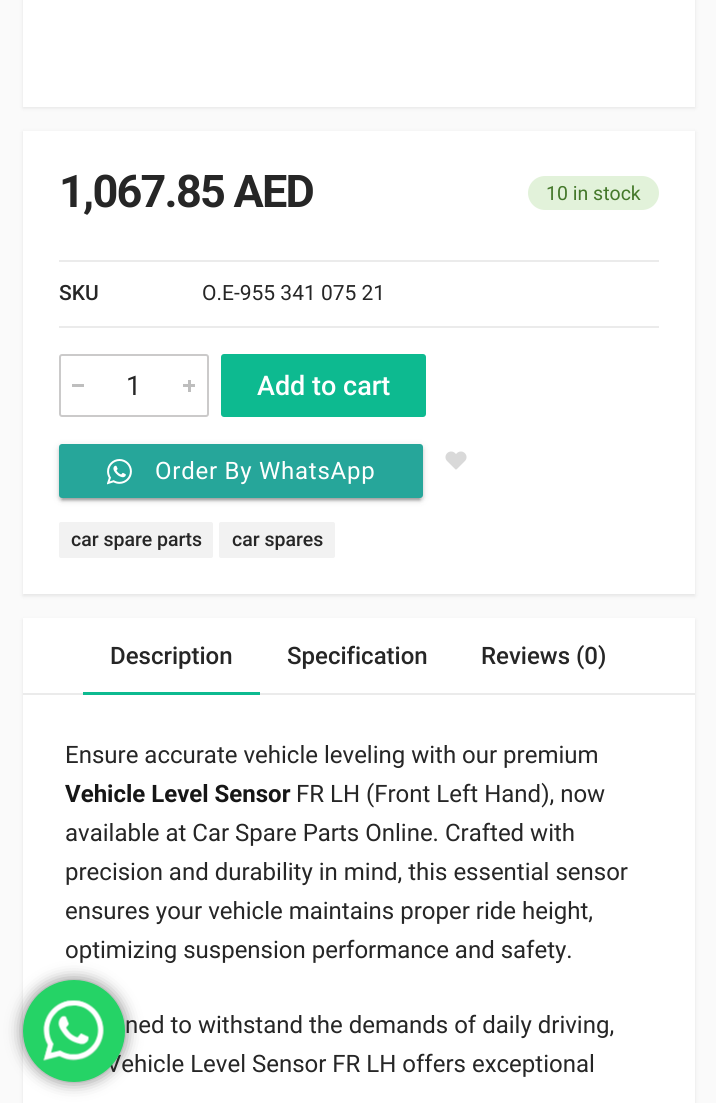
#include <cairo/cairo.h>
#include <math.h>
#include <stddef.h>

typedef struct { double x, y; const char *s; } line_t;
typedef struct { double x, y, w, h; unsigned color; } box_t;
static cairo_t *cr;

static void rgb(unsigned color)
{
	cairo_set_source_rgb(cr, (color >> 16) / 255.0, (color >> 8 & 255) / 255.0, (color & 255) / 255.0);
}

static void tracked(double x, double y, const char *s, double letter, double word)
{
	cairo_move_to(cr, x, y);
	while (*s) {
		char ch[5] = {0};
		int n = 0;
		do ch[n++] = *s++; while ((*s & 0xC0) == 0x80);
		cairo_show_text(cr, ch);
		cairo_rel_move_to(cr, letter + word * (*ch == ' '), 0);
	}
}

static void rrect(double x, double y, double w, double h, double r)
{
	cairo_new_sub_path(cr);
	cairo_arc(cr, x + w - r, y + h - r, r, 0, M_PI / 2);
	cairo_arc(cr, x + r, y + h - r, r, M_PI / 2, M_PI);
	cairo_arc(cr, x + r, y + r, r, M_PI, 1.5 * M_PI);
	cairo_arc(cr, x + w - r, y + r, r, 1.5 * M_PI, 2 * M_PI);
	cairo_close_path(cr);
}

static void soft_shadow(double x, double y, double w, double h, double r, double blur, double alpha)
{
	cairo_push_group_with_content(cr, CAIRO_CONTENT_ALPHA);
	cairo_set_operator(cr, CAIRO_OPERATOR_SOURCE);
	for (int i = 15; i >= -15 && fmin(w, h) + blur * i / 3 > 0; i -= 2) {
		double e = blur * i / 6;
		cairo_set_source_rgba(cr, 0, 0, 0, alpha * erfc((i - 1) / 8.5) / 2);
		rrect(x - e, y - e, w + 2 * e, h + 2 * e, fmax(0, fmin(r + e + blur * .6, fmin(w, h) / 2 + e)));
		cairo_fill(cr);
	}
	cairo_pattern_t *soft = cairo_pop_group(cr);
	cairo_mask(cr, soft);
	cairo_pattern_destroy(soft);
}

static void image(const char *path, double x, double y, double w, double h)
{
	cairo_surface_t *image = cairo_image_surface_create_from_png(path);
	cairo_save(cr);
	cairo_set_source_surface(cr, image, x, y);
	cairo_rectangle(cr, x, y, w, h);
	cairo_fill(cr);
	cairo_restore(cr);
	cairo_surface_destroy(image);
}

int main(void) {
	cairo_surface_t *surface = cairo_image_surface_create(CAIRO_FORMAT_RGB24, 716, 1103);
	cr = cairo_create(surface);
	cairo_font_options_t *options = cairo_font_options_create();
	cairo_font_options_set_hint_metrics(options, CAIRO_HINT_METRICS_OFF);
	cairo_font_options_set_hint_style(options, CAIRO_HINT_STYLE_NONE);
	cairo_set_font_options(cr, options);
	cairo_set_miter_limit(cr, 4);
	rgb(0xfafafa);
	cairo_paint(cr);
	rgb(0x000000);
	soft_shadow(23, -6, 672, 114, 0, 2, 0.09);
	rgb(0xffffff);
	cairo_rectangle(cr, 23, 0, 672, 107);
	cairo_fill(cr);
	rgb(0x000000);
	soft_shadow(23, 132, 672, 464, 0, 2, 0.09);
	rgb(0xffffff);
	cairo_rectangle(cr, 23, 131, 672, 463);
	cairo_fill(cr);
	rgb(0xe2f2da);
	rrect(528, 176, 131, 34, 17);
	cairo_fill(cr);
	rgb(0xebebeb);
	cairo_rectangle(cr, 59, 260, 600, 2);
	cairo_fill(cr);
	cairo_rectangle(cr, 59, 326, 600, 2);
	cairo_fill(cr);
	rrect(60, 355, 148, 61, 2);
	rgb(0xcbcaca);
	cairo_stroke(cr);
	{
		static const box_t items[] = {
			{72, 384, 12, 3, 0xbebebe},
			{183, 384, 12, 3, 0xbebebe},
			{188, 380, 3, 12, 0xbebebe},
		};
		for (size_t i = 0; i < sizeof items / sizeof *items; i++) {
			rgb(items[i].color);
			cairo_rectangle(cr, items[i].x, items[i].y, items[i].w, items[i].h);
			cairo_fill(cr);
		}
	}
	rgb(0x0dba90);
	rrect(221, 354, 205, 63, 3);
	cairo_fill(cr);
	rgb(0x000000);
	soft_shadow(62, 452, 358, 48, 0, 1, 0.2);
	soft_shadow(59, 446, 364, 54, 3, 4, 0.12);
	soft_shadow(59, 447, 364, 54, 3, 1.5, 0.14);
	rgb(0x26a69a);
	rrect(59, 444, 364, 54, 3);
	cairo_fill(cr);
	image("img/1.png", 107, 459, 25, 26);
	image("img/2.png", 445, 451, 22, 19);
	rgb(0xf2f2f2);
	rrect(59, 522, 154, 36, 2);
	cairo_fill(cr);
	rrect(219, 522, 116, 36, 2);
	cairo_fill(cr);
	rgb(0x000000);
	soft_shadow(23, 620, 672, 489, 0, 2, 0.09);
	{
		static const box_t items[] = {
			{23, 618, 672, 485, 0xffffff},
			{23, 693, 672, 2, 0xebebeb},
			{83, 692, 177, 3, 0x0dba90},
		};
		for (size_t i = 0; i < sizeof items / sizeof *items; i++) {
			rgb(items[i].color);
			cairo_rectangle(cr, items[i].x, items[i].y, items[i].w, items[i].h);
			cairo_fill(cr);
		}
	}
	rgb(0x000000);
	soft_shadow(23, 980, 102, 102, 51, 8, 0.5);
	cairo_select_font_face(cr, "Roboto", CAIRO_FONT_SLANT_NORMAL, CAIRO_FONT_WEIGHT_BOLD);
	cairo_set_font_size(cr, 45);
	rgb(0x262626);
	tracked(59, 207, "1,067.85 AED", -1.75, 0);
	cairo_select_font_face(cr, "Roboto", CAIRO_FONT_SLANT_NORMAL, CAIRO_FONT_WEIGHT_NORMAL);
	cairo_set_font_size(cr, 19.5);
	rgb(0x44782a);
	cairo_move_to(cr, 546, 200);
	cairo_show_text(cr, "10 in stock");
	cairo_select_font_face(cr, "Roboto Medium", CAIRO_FONT_SLANT_NORMAL, CAIRO_FONT_WEIGHT_NORMAL);
	cairo_set_font_size(cr, 21);
	rgb(0x262626);
	cairo_move_to(cr, 59, 300);
	cairo_show_text(cr, "SKU");
	cairo_select_font_face(cr, "Roboto", CAIRO_FONT_SLANT_NORMAL, CAIRO_FONT_WEIGHT_NORMAL);
	cairo_move_to(cr, 202, 300);
	cairo_show_text(cr, "O.E-955 341 075 21");
	cairo_set_font_size(cr, 27);
	cairo_move_to(cr, 126, 395);
	cairo_show_text(cr, "1");
	cairo_select_font_face(cr, "Roboto Medium", CAIRO_FONT_SLANT_NORMAL, CAIRO_FONT_WEIGHT_NORMAL);
	rgb(0xffffff);
	cairo_move_to(cr, 257, 395);
	cairo_show_text(cr, "Add to cart");
	cairo_select_font_face(cr, "Roboto", CAIRO_FONT_SLANT_NORMAL, CAIRO_FONT_WEIGHT_NORMAL);
	cairo_set_font_size(cr, 24);
	tracked(155, 479, "Order By WhatsApp", 0.75, 0);
	cairo_select_font_face(cr, "Roboto Medium", CAIRO_FONT_SLANT_NORMAL, CAIRO_FONT_WEIGHT_NORMAL);
	cairo_set_font_size(cr, 19.5);
	rgb(0x262626);
	cairo_move_to(cr, 71, 546);
	cairo_show_text(cr, "car spare parts");
	cairo_move_to(cr, 232, 546);
	cairo_show_text(cr, "car spares");
	cairo_set_font_size(cr, 24);
	{
		static const line_t items[] = {
			{110, 664, "Description"},
			{287, 664, "Specification"},
			{481, 664, "Reviews (0)"},
		};
		for (size_t i = 0; i < sizeof items / sizeof *items; i++) {
			cairo_move_to(cr, items[i].x, items[i].y);
			cairo_show_text(cr, items[i].s);
		}
	}
	cairo_select_font_face(cr, "Roboto", CAIRO_FONT_SLANT_NORMAL, CAIRO_FONT_WEIGHT_NORMAL);
	cairo_move_to(cr, 65, 763);
	cairo_show_text(cr, "Ensure accurate vehicle leveling with our premium");
	cairo_select_font_face(cr, "Roboto", CAIRO_FONT_SLANT_NORMAL, CAIRO_FONT_WEIGHT_BOLD);
	rgb(0x161616);
	cairo_move_to(cr, 65, 802);
	cairo_show_text(cr, "Vehicle Level Sensor");
	cairo_select_font_face(cr, "Roboto", CAIRO_FONT_SLANT_NORMAL, CAIRO_FONT_WEIGHT_NORMAL);
	rgb(0x262626);
	{
		static const line_t items[] = {
			{296, 802, "FR LH (Front Left Hand), now"},
			{65, 841, "available at Car Spare Parts Online. Crafted with"},
			{65, 880, "precision and durability in mind, this essential sensor"},
			{65, 919, "ensures your vehicle maintains proper ride height,"},
			{65, 958, "optimizing suspension performance and safety."},
			{125, 1033, "ned to withstand the demands of daily driving,"},
			{106, 1072, "Vehicle Level Sensor FR LH offers exceptional"},
		};
		for (size_t i = 0; i < sizeof items / sizeof *items; i++) {
			cairo_move_to(cr, items[i].x, items[i].y);
			cairo_show_text(cr, items[i].s);
		}
	}
	rgb(0x25d366);
	cairo_new_path(cr);
	cairo_arc(cr, 74, 1031, 51, 0, 2 * M_PI);
	cairo_fill(cr);
	image("img/3.png", 43, 1000, 61, 61);
	cairo_surface_write_to_png(surface, "page.png");
	cairo_font_options_destroy(options);
	cairo_destroy(cr);
	cairo_surface_destroy(surface);
	return 0;
}
